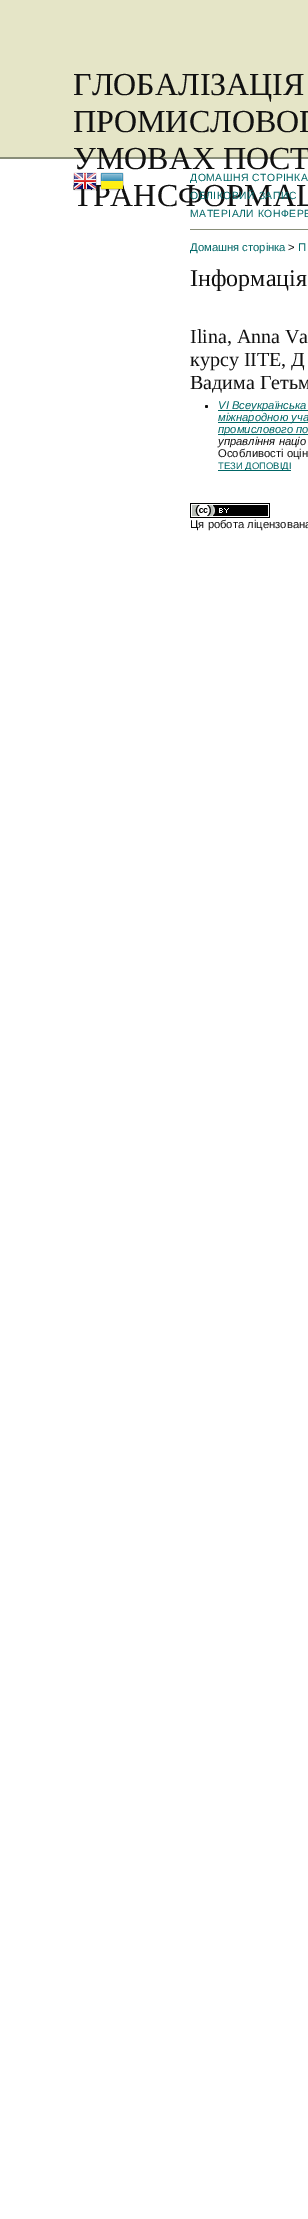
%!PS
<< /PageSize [308 2219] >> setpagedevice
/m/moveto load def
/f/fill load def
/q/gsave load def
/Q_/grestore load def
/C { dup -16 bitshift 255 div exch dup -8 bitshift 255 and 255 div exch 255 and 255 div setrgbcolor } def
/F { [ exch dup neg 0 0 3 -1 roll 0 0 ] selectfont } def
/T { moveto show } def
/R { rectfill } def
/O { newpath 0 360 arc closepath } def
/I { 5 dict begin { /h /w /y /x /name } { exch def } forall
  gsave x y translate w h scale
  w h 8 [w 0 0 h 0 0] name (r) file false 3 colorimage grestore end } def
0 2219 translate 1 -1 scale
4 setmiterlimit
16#FFFFFF C
0 0 308 2219 R
16#E5E5C7 C
0 0 308 157 R
16#898E79 C
0 157 308 2 R
/LiberationSerif-Regular 32 F
16#111111 C
(ГЛОБАЛІЗАЦІЯ) 73 95 T
(ПРОМИСЛОВОГ) 73 132 T
(УМОВАХ ПОСТ) 73 169 T
(ТРАНСФОРМАЦ) 73 206 T
(1.rgb) 73 172 24 19 I
(2.rgb) 100 172 24 19 I
16#898E79 C
190 229 118 1 R
q
190 159 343 403 rectclip
/LiberationSans-Regular 10.4 F
16#006666 C
190 181 m .5 0 (ДОМАШНЯ СТОРІНКА) ashow
Q_
/LiberationSans-Regular 10.4 F
16#006666 C
190 199 m .5 0 (ОБЛІКОВИЙ ЗАПИС) ashow
190 217 m .5 0 (МАТЕРІАЛИ КОНФЕРЕ) ashow
q
190 159 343 403 rectclip
/LiberationSans-Regular 11.25 F
(Домашня сторінка) 190 251 T
Q_
/LiberationSans-Regular 11.25 F
16#111111 C
(>) 288 251 T
16#006666 C
(П) 298 251 T
/LiberationSerif-Regular 24 F
16#111111 C
(Інформація) 190 286 T
/LiberationSerif-Regular 20 F
(Ilina, Anna Va) 190 343 T
(курсу ІІТЕ, Д) 190 366 T
(Вадима Гетьм) 190 389 T
206.5 406.5 1.5 O f
16#006666 C
218 410 90 1 R
/LiberationSans-Italic 11.25 F
(VІ Всеукраїнська) 218 409 T
218 422 90 1 R
(міжнародною уча) 218 421 T
218 434 90 1 R
(промислового по) 218 433 T
16#111111 C
(управління націо) 218 445 T
/LiberationSans-Regular 11.25 F
(Особливості оцін) 218 457 T
16#006666 C
218 470 73 1 R
/LiberationSans-Regular 9.5 F
(ТЕЗИ ДОПОВІДІ) 218 469 T
(3.rgb) 190 503 80 15 I
/LiberationSans-Regular 11.25 F
16#111111 C
(Ця робота ліцензована) 190 528 T
showpage
